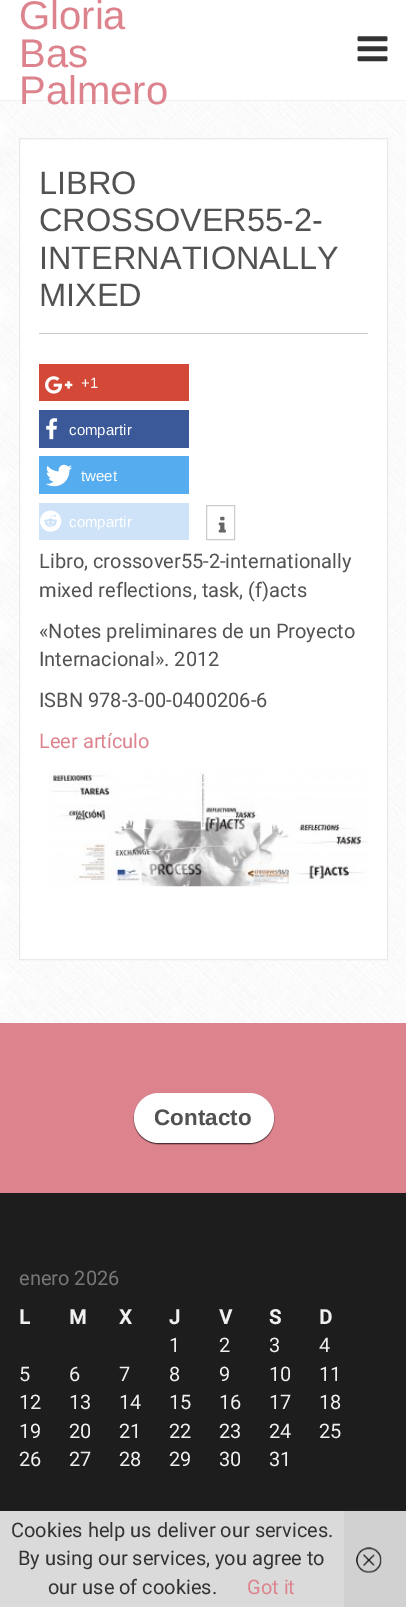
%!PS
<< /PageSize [406 1607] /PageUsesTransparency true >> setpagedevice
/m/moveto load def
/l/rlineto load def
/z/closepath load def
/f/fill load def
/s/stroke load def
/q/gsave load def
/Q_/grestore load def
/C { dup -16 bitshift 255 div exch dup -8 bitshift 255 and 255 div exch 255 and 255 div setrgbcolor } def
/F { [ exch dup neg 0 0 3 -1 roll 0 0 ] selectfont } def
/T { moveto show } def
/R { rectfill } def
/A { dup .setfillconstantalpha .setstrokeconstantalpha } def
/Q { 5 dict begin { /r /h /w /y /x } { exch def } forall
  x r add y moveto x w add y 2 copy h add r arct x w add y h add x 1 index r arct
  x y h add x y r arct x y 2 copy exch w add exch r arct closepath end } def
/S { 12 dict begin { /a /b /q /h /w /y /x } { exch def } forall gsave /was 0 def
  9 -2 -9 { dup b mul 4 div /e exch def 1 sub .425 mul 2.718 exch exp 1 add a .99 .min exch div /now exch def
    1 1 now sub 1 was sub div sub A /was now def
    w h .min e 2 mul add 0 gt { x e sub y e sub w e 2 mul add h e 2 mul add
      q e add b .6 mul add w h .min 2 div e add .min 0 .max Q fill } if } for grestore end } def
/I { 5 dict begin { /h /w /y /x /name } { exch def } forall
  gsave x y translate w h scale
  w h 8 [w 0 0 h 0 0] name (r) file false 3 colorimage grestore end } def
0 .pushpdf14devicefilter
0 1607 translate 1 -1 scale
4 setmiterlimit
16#FFFFFF C
0 0 406 1607 R
(1.rgb) 0 101 406 922 I
16#F0F0F0 C
0 100 406 1 R
/LiberationSans-Regular 40 F
16#DC838D C
(Gloria) 19 29 T
(Bas) 19 67 T
(Palmero) 19 104 T
(2.rgb) 357 36 31 26 I
16#FFFFFF C
19.5 138.5 m 368 0 l 0 821 l -368 0 l z q f Q_
16#EAEAEA C
s
16#CACACA C
39 333 329 1 R
/LiberationSans-Regular 32.5 F
16#525252 C
(LIBRO) 39 194 T
(CROSSOVER55-2-) 39 231 T
(INTERNATIONALLY) 39 269 T
(MIXED) 39 306 T
16#D34836 C
39 364 150 37 R
(3.rgb) 45 376 28 18 I
/LiberationSans-Regular 15 F
16#FFFFFF C
(+1) 81 388 T
16#3B5998 C
39 410 150 38 R
(4.rgb) 46 418 12 22 I
16#FFFFFF C
(compartir) 69 435 T
16#55ACEE C
39 456 150 38 R
(5.rgb) 46 464 26 23 I
16#FFFFFF C
(tweet) 81 481 T
16#CEE3F8 C
39 503 150 37 R
(6.rgb) 40 510 22 22 I
16#FFFFFF C
(compartir) 69 527 T
16#CCCCCC C
206.5 505.5 28 34 rectstroke
(7.rgb) 218 516 8 17 I
/Roboto-Regular 20 F
16#525252 C
(Libro, crossover55-2-internationally) 39 568 T
(mixed reflections, task, \(f\)acts) 39 597 T
(«Notes preliminares de un Proyecto) 39 638 T
(Internacional». 2012) 39 666 T
(ISBN 978-3-00-0400206-6) 39 707 T
16#DC838D C
(Leer artículo) 39 748 T
(8.rgb) 49 770 319 117 I
16#1D1D1D C
0 1193 406 414 R
16#DC838D C
0 1023 406 170 R
16#000000 C
134 1094 140 50 25 .5 .75 S
16#FFFFFF C
134 1093 140 50 25 Q f
/LiberationSans-Bold 22.5 F
16#525252 C
(Contacto) 154 1125 T
/Roboto-Regular 20 F
16#777777 C
(enero 2026) 19 1285 T
/Roboto-Bold 20 F
16#F0F0F0 C
(L) 19 1324 T
(M) 69 1324 T
(X) 119 1324 T
(J) 169 1324 T
(V) 219 1324 T
(S) 269 1324 T
(D) 319 1324 T
/Roboto-Regular 20 F
(1) 169 1352 T
(2) 219 1352 T
(3) 269 1352 T
(4) 319 1352 T
(5) 19 1381 T
(6) 69 1381 T
(7) 119 1381 T
(8) 169 1381 T
(9) 219 1381 T
(10) 269 1381 T
(11) 319 1381 T
(12) 19 1409 T
(13) 69 1409 T
(14) 119 1409 T
(15) 169 1409 T
(16) 219 1409 T
(17) 269 1409 T
(18) 319 1409 T
(19) 19 1438 T
(20) 69 1438 T
(21) 119 1438 T
(22) 169 1438 T
(23) 219 1438 T
(24) 269 1438 T
(25) 319 1438 T
(26) 19 1466 T
(27) 69 1466 T
(28) 119 1466 T
(29) 169 1466 T
(30) 219 1466 T
(31) 269 1466 T
0.9 A
16#EEEEEE C
0 1511 344 96 R
1 A
16#333333 C
(Cookies help us deliver our services.) 11 1537 T
(By using our services, you agree to) 18 1565 T
(our use of cookies.) 48 1594 T
16#DC838D C
(Got it) 247 1594 T
16#D1D1D1 C
344 1511 62 96 R
(9.rgb) 356 1547 26 26 I
.poppdf14devicefilter showpage
